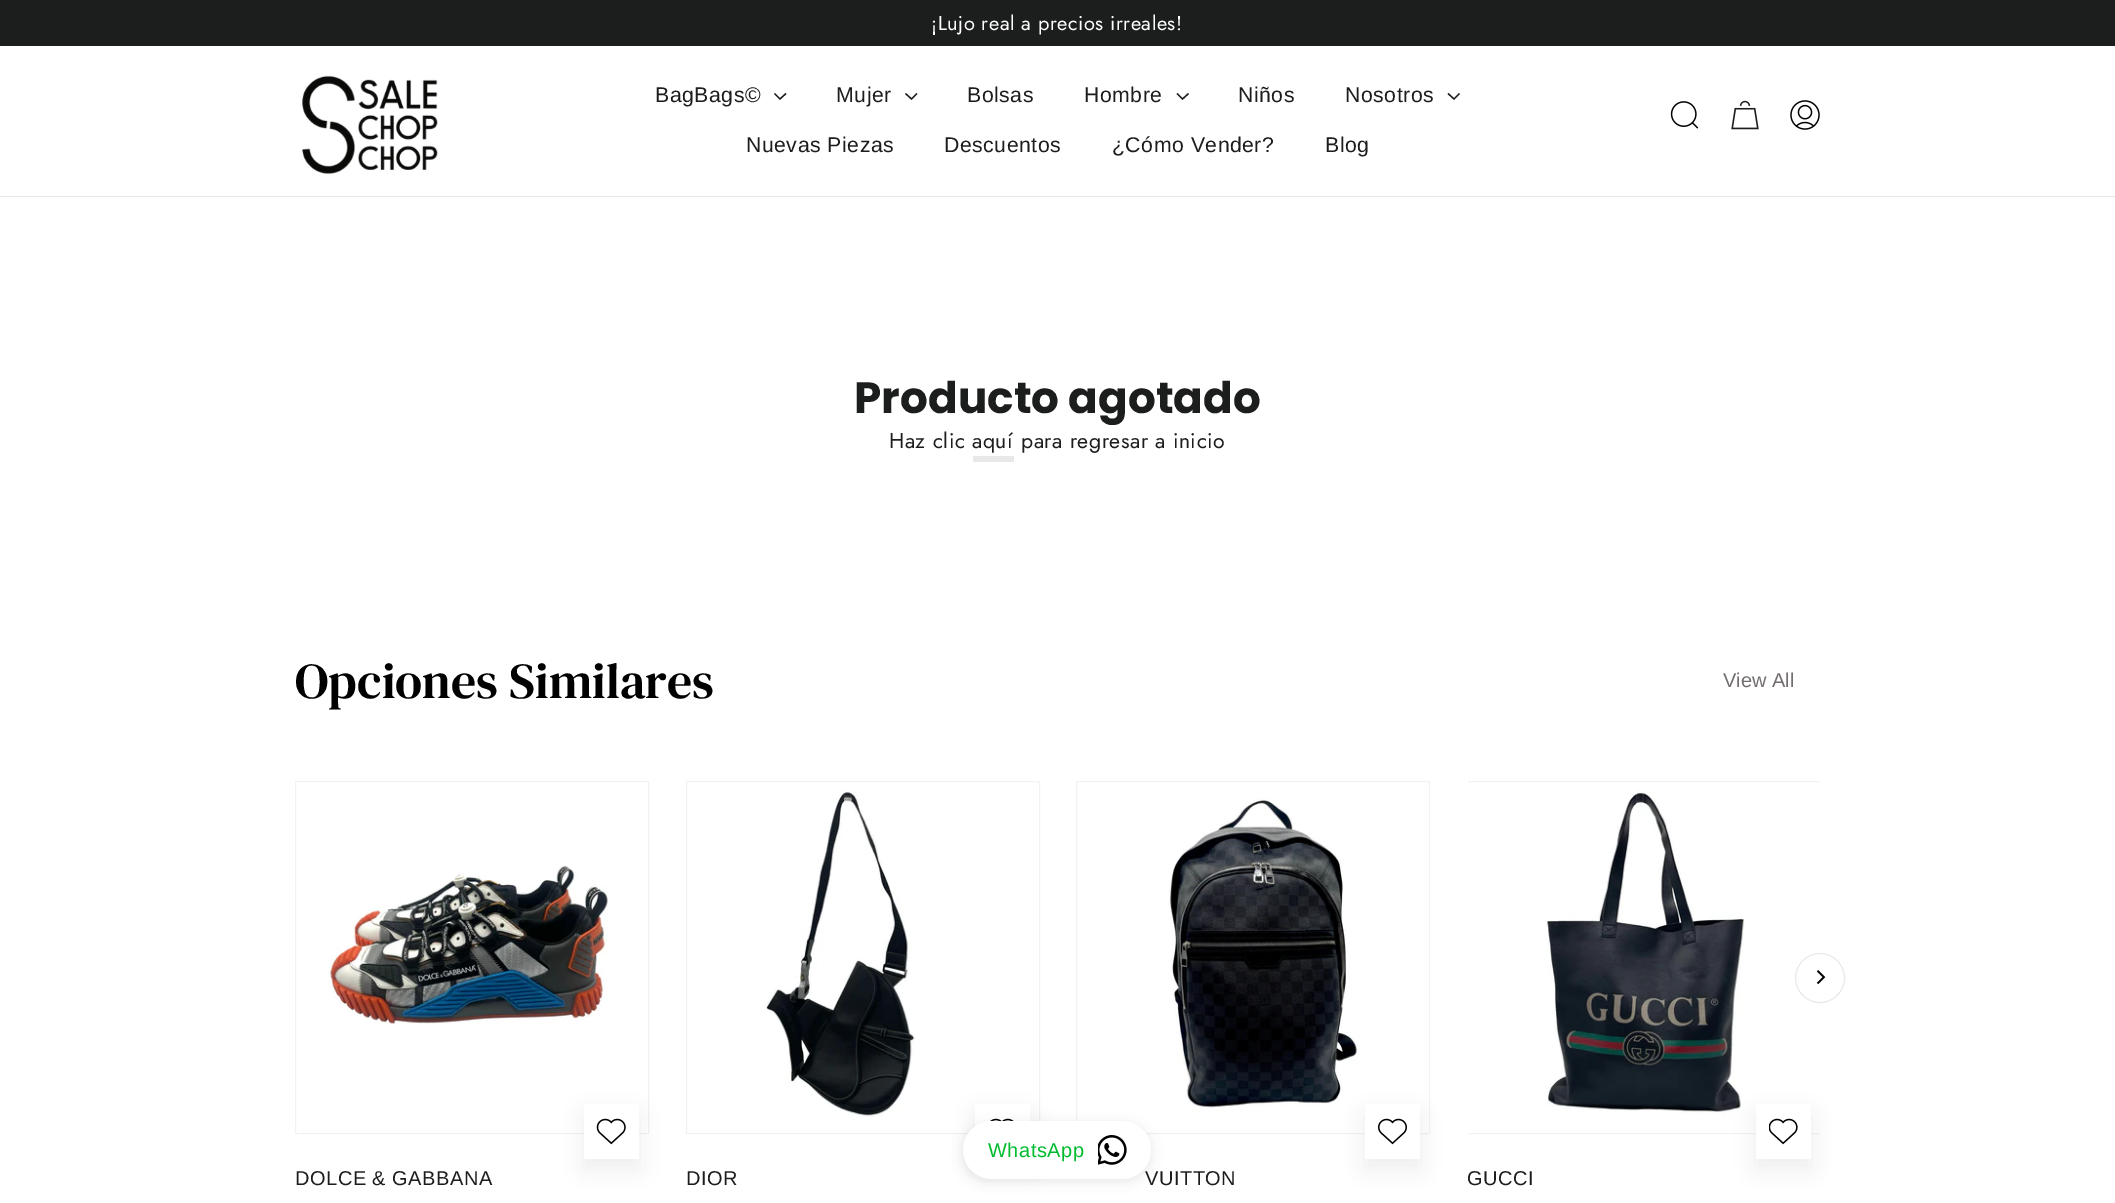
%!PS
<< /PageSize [2115 1203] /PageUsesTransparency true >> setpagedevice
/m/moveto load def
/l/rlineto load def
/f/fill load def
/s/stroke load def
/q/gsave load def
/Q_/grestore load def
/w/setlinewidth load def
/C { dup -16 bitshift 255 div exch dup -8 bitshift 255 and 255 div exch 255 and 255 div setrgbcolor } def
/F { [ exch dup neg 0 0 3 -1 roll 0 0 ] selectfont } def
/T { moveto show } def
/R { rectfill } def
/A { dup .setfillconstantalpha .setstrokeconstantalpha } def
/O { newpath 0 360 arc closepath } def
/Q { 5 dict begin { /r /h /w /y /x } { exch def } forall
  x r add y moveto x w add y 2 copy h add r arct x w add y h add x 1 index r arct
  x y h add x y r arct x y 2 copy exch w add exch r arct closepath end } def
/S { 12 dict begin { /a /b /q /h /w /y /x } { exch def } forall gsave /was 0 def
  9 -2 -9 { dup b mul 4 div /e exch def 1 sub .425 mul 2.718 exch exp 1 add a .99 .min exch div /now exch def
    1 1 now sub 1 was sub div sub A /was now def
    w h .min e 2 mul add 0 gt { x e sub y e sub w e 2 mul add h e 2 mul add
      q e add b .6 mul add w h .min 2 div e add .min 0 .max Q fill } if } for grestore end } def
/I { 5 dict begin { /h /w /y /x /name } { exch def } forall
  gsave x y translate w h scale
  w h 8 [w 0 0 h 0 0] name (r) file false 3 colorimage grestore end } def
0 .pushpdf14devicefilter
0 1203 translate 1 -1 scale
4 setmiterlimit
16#FFFFFF C
0 0 2115 1203 R
16#1C1D1D C
0 0 2115 46 R
/Jost-Regular 20 F
16#FFFFFF C
931 30 m .5 0 (¡Lujo real a precios irreales!) ashow
16#E8E8E1 C
0 196 2115 1 R
(1.rgb) 302 75 136 99 I
/LiberationSans-Regular 21.25 F
16#1C1D1D C
655 102 m .5 0 (BagBags©) ashow
1.3 w
774.5 93.5 m 5.5 5.5 l 6 -5.5 l s
836 102 m .5 0 (Mujer) ashow
905.5 93.5 m 6 5.5 l 5.5 -5.5 l s
967 102 m .5 0 (Bolsas) ashow
1084 102 m .5 0 (Hombre) ashow
1177 93.5 m 5.5 5.5 l 6 -5.5 l s
1238 102 m .5 0 (Niños) ashow
1345 102 m .5 0 (Nosotros) ashow
1448 93.5 m 6 5.5 l 5.5 -5.5 l s
746 152 m .5 0 (Nuevas Piezas) ashow
944 152 m .5 0 (Descuentos) ashow
1112 152 m .5 0 (¿Cómo Vender?) ashow
1325 152 m .5 0 (Blog) ashow
(2.rgb) 1670 101 29 28 I
(3.rgb) 1731 100 28 30 I
(4.rgb) 1790 100 30 30 I
/Poppins-Bold 43.75 F
(Producto agotado) 854 413 T
/Jost-Regular 21.25 F
889 448 m .5 0 (Haz clic aquí) ashow
1021 448 m .5 0 (para regresar a inicio) ashow
16#E8E8E8 C
973 456 41 6 R
/DMSerifText-Regular 50 F
16#000000 C
(Opciones Similares) 295 698 T
/LiberationSans-Regular 20 F
16#736E6D C
(View All) 1723 687 T
q
258 759 1562 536 rectclip
16#F3F2F1 C
1 w
1468.5 781.5 352 352 rectstroke
Q_
16#E9E9E9 C
1 w
1820 978 24.5 O s
(5.rgb) 1816 970 10 14 I
16#F3F2F1 C
295.5 781.5 353 352 rectstroke
(6.rgb) 328 866 281 159 I
16#2F2E2D C
584 1114 55 55 0 10 .08 S
16#FFFFFF C
584 1104 55 55 R
(7.rgb) 596 1118 30 27 I
16#1C1D1D C
295 1185 m .5 0 (DOLCE & GABBANA) ashow
16#F3F2F1 C
686.5 781.5 353 352 rectstroke
(8.rgb) 765 790 150 327 I
16#2F2E2D C
975 1114 55 55 0 10 .08 S
16#FFFFFF C
975 1104 55 23 R
(9.rgb) 989 1118 25 4 I
16#1C1D1D C
686 1185 m .5 0 (DIOR) ashow
16#F3F2F1 C
1076.5 781.5 353 352 rectstroke
(10.rgb) 1168 798 190 310 I
16#2F2E2D C
1365 1114 55 55 0 10 .08 S
16#FFFFFF C
1365 1104 55 55 R
(11.rgb) 1378 1118 29 27 I
16#1C1D1D C
1145 1185 m .5 0 (VUITTON) ashow
(12.rgb) 1468 783 277 350 I
16#2F2E2D C
1756 1114 55 55 0 10 .08 S
16#FFFFFF C
1756 1104 55 55 R
(13.rgb) 1769 1118 29 27 I
16#1C1D1D C
1467 1185 m .5 0 (GUCCI) ashow
16#000000 C
963 1124 188 57 28.5 6 .1 S
16#FFFFFF C
963 1121 188 58 29 Q f
16#00BB2D C
988 1157 m .5 0 (WhatsApp) ashow
(14.rgb) 1098 1135 29 30 I
.poppdf14devicefilter showpage
